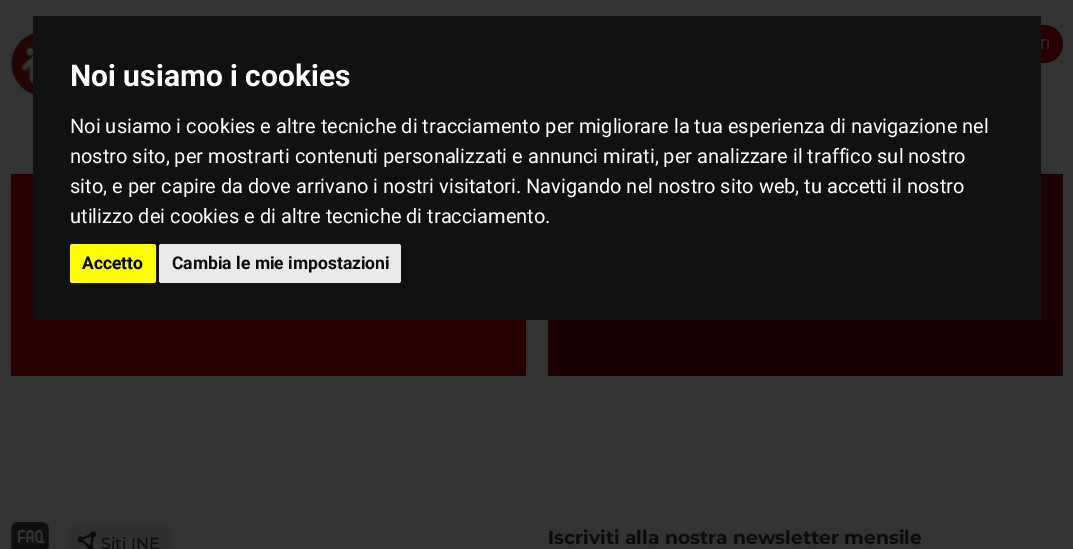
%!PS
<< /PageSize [1073 549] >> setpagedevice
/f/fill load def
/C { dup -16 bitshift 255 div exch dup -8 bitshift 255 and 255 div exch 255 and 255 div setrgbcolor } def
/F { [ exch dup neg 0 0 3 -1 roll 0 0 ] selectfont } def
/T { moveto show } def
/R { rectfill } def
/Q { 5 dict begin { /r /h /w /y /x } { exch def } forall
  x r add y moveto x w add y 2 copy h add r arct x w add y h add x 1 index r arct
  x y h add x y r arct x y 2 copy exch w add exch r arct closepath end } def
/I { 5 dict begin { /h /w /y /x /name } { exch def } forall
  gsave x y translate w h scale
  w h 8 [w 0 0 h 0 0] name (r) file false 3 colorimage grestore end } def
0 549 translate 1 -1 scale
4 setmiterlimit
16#333333 C
0 0 1073 549 R
(1.rgb) 11 33 22 62 I
16#290000 C
938 25 125 38 19 Q f
/Montserrat-Medium 14 F
16#333333 C
(TI) 1038 49 T
16#303030 C
1061 109 1 52 R
16#290000 C
11 174 515 202 R
16#1B0204 C
548 174 515 202 R
16#111111 C
33 16 1008 304 R
/Roboto-Bold 30 F
16#FFFFFF C
(Noi usiamo i cookies) 70 86 T
/Roboto-Regular 20 F
(Noi usiamo i cookies e altre tecniche di tracciamento per migliorare la tua esperienza di navigazione nel) 70 133 T
(nostro sito, per mostrarti contenuti personalizzati e annunci mirati, per analizzare il traffico sul nostro) 70 163 T
(sito, e per capire da dove arrivano i nostri visitatori. Navigando nel nostro sito web, tu accetti il nostro) 70 193 T
(utilizzo dei cookies e di altre tecniche di tracciamento.) 70 223 T
16#FFFF00 C
70 244 86 39 2.5 Q f
/Roboto-Bold 17.5 F
16#000000 C
(Accetto) 82 269 T
16#EAEAEA C
159 244 242 39 2.5 Q f
16#0C0C0C C
(Cambia le mie impostazioni) 172 269 T
(2.rgb) 11 522 38 27 I
16#303030 C
69 523 101 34 8 Q f
(3.rgb) 77 531 20 18 I
/Montserrat-Medium 16 F
16#0C0C0C C
(Siti INE) 101 549 T
/Montserrat-Bold 18.75 F
(Iscriviti alla nostra newsletter mensile) 548 544 T
showpage
